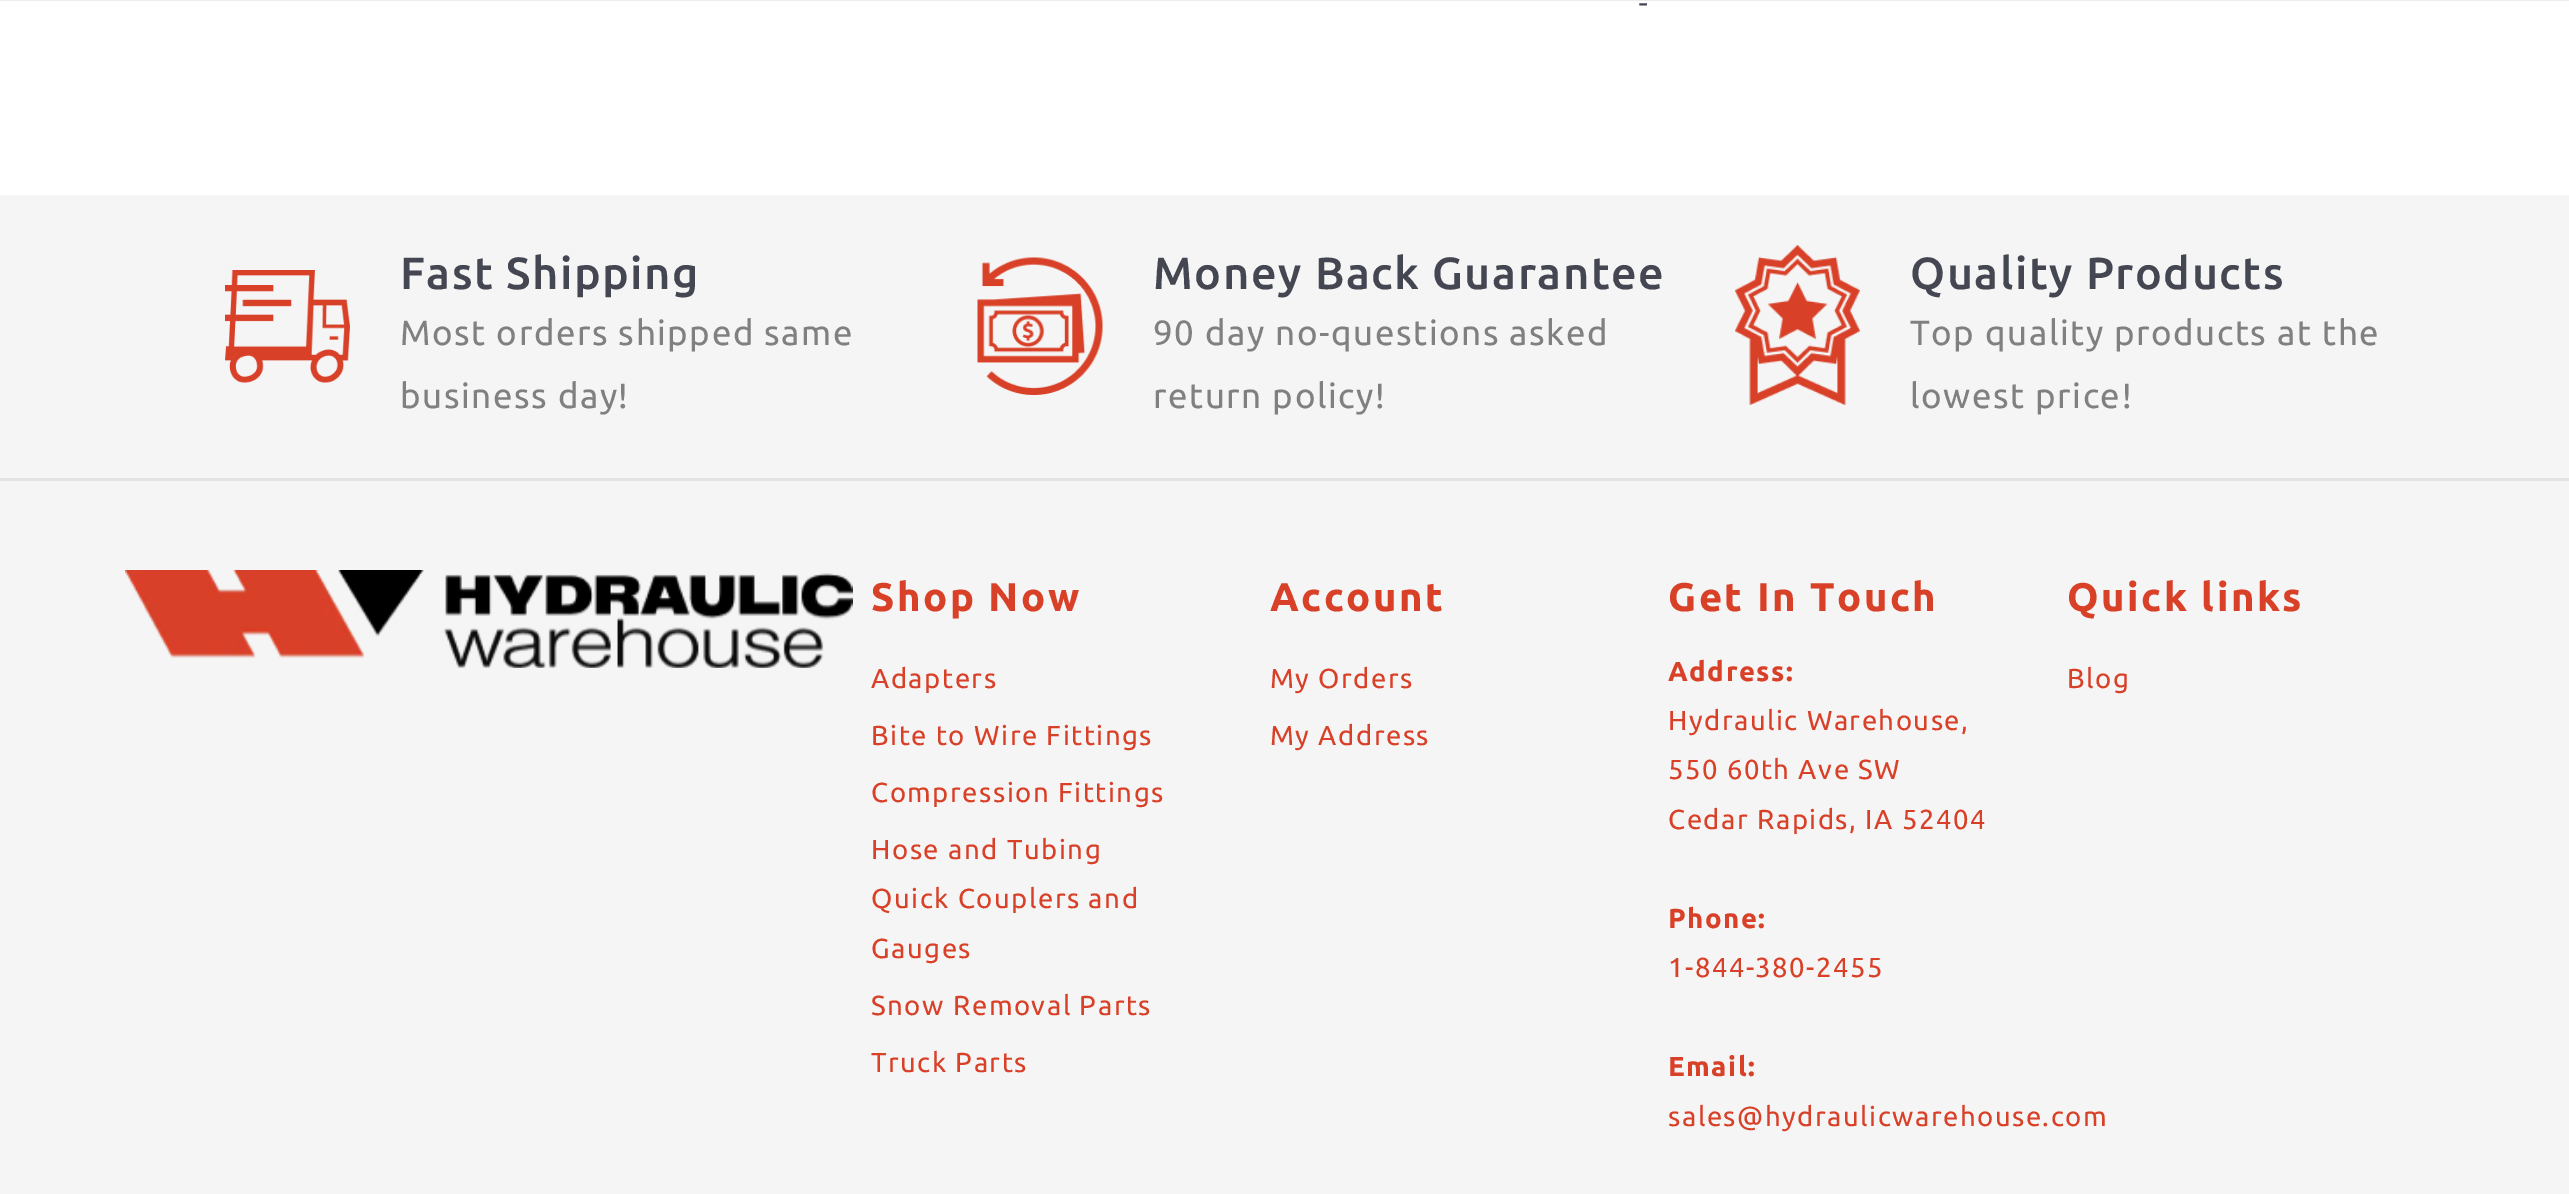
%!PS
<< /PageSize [2569 1194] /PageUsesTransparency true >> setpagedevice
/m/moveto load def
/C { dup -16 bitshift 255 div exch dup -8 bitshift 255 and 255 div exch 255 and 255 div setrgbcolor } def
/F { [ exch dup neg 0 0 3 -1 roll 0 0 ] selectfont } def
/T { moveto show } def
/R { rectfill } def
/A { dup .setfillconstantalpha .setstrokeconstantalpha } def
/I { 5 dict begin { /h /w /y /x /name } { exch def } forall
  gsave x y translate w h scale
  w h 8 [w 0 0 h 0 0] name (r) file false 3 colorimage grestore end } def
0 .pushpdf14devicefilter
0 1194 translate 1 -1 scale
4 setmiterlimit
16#FFFFFF C
0 0 2569 1194 R
0.08 A
16#121212 C
0 0 2569 1 R
/OpenSans-Regular 32 F
1 A
16#444751 C
(-) 1638 13 T
16#F5F5F5 C
0 195 2569 283 R
(1.rgb) 225 270 125 113 I
/Ubuntu-Medium 45 F
16#444751 C
400 289 m 1.5 0 (Fast Shipping) ashow
/Ubuntu-Regular 35 F
16#808080 C
400 345 m 1.5 0 (Most orders shipped same) ashow
400 408 m 1.5 0 (business day!) ashow
(2.rgb) 977 257 126 138 I
/Ubuntu-Medium 45 F
16#444751 C
1153 289 m 1.5 0 (Money Back Guarantee) ashow
/Ubuntu-Regular 35 F
16#808080 C
1153 345 m 1.5 0 (90 day no-questions asked) ashow
1153 408 m 1.5 0 (return policy!) ashow
(3.rgb) 1735 245 125 160 I
/Ubuntu-Medium 45 F
16#444751 C
1910 289 m 1.5 0 (Quality Products) ashow
/Ubuntu-Regular 35 F
16#808080 C
1910 345 m 1.5 0 (Top quality products at the) ashow
1910 408 m 1.5 0 (lowest price!) ashow
16#F5F5F5 C
0 481 2569 713 R
16#E3E3E3 C
0 478 2569 3 R
(4.rgb) 125 570 728 98 I
/Ubuntu-Bold 40 F
16#D84028 C
871 611 m 2.5 0 (Shop Now) ashow
/Ubuntu-Regular 27.5 F
871 688 m 1.5 0 (Adapters) ashow
871 745 m 1.5 0 (Bite to Wire Fittings) ashow
871 802 m 1.5 0 (Compression Fittings) ashow
871 859 m 1.5 0 (Hose and Tubing) ashow
871 908 m 1.5 0 (Quick Couplers and) ashow
871 958 m 1.5 0 (Gauges) ashow
871 1015 m 1.5 0 (Snow Removal Parts) ashow
871 1072 m 1.5 0 (Truck Parts) ashow
/Ubuntu-Bold 40 F
1270 611 m 2.5 0 (Account) ashow
/Ubuntu-Regular 27.5 F
1270 688 m 1.5 0 (My Orders) ashow
1270 745 m 1.5 0 (My Address) ashow
/Ubuntu-Bold 40 F
1668 611 m 2.5 0 (Get In Touch) ashow
/Ubuntu-Bold 27.5 F
1668 681 m 1.5 0 (Address:) ashow
/Ubuntu-Regular 27.5 F
1668 730 m 1.5 0 (Hydraulic Warehouse,) ashow
1668 779 m 1.5 0 (550 60th Ave SW) ashow
1668 829 m 1.5 0 (Cedar Rapids, IA 52404) ashow
/Ubuntu-Bold 27.5 F
1668 928 m 1.5 0 (Phone:) ashow
/Ubuntu-Regular 27.5 F
1668 977 m 1.5 0 (1-844-380-2455) ashow
/Ubuntu-Bold 27.5 F
1668 1076 m 1.5 0 (Email:) ashow
/Ubuntu-Regular 27.5 F
1668 1126 m 1.5 0 (sales@hydraulicwarehouse.com) ashow
/Ubuntu-Bold 40 F
2067 611 m 2.5 0 (Quick links) ashow
/Ubuntu-Regular 27.5 F
2067 688 m 1.5 0 (Blog) ashow
.poppdf14devicefilter showpage
